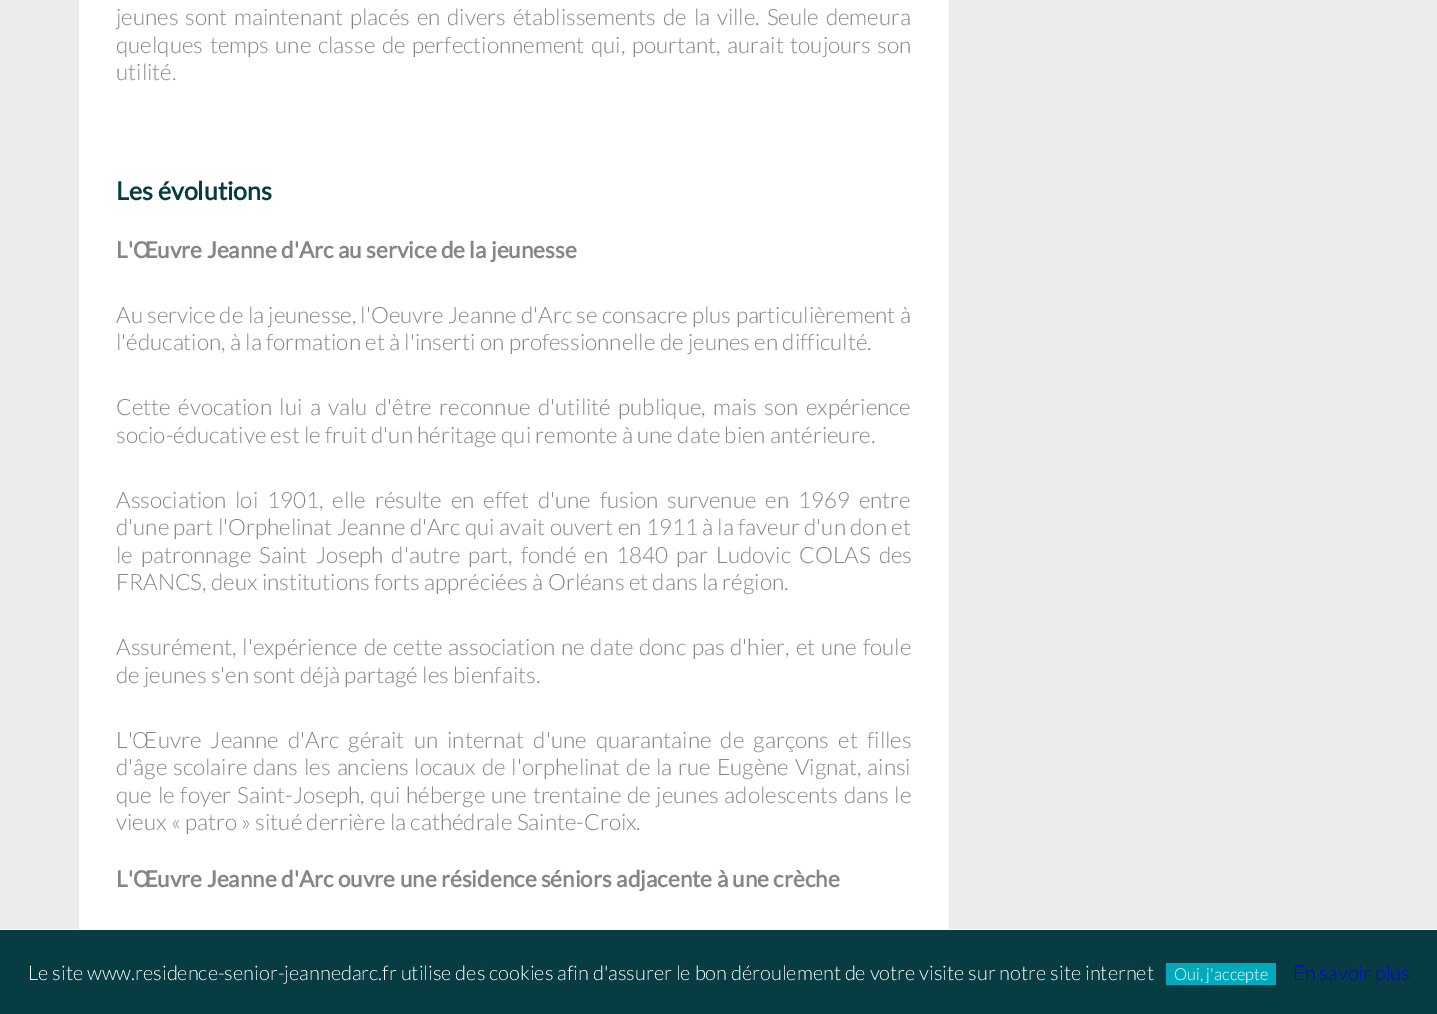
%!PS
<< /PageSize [1437 1014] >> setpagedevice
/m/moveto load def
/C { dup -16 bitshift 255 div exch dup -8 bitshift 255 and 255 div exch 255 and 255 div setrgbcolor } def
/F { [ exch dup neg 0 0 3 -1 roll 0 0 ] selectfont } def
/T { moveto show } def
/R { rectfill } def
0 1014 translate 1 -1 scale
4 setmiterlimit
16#ECECEC C
0 0 1437 1014 R
16#FFFFFF C
79 0 870 929 R
/Lato-Light 22.5 F
16#868686 C
116 25 m 2.5 0 32 (jeunes sont maintenant placés en divers établissements de la ville. Seule demeura) widthshow
116 53 m 2.25 0 32 (quelques temps une classe de perfectionnement qui, pourtant, aurait toujours son) widthshow
(utilité.) 116 80 T
/Lato-Bold 25 F
16#063C42 C
(Les évolutions) 116 200 T
/Lato-Bold 22.5 F
16#868686 C
(L'Œuvre Jeanne d'Arc au service de la jeunesse) 116 258 T
/Lato-Light 22.5 F
(Au service de la jeunesse, l'Oeuvre Jeanne d'Arc se consacre plus particulièrement à) 116 323 T
(l'éducation, à la formation et à l'inserti on professionnelle de jeunes en difficulté.) 116 350 T
116 415 m 3.1 0 32 (Cette évocation lui a valu d'être reconnue d'utilité publique, mais son expérience) widthshow
(socio-éducative est le fruit d'un héritage qui remonte à une date bien antérieure.) 116 443 T
116 508 m 4.5 0 32 (Association loi 1901, elle résulte en effet d'une fusion survenue en 1969 entre) widthshow
(d'une part l'Orphelinat Jeanne d'Arc qui avait ouvert en 1911 à la faveur d'un don et) 116 535 T
116 563 m 3.75 0 32 (le patronnage Saint Joseph d'autre part, fondé en 1840 par Ludovic COLAS des) widthshow
(FRANCS, deux institutions forts appréciées à Orléans et dans la région.) 116 590 T
116 655 m 1.5 0 32 (Assurément, l'expérience de cette association ne date donc pas d'hier, et une foule) widthshow
(de jeunes s'en sont déjà partagé les bienfaits.) 116 683 T
116 748 m 4.9 0 32 (L'Œuvre Jeanne d'Arc gérait un internat d'une quarantaine de garçons et filles) widthshow
116 775 m 1.6 0 32 (d'âge scolaire dans les anciens locaux de l'orphelinat de la rue Eugène Vignat, ainsi) widthshow
116 803 m 1.4 0 32 (que le foyer Saint-Joseph, qui héberge une trentaine de jeunes adolescents dans le) widthshow
(vieux « patro » situé derrière la cathédrale Sainte-Croix.) 116 830 T
/Lato-Bold 22.5 F
(L'Œuvre Jeanne d'Arc ouvre une résidence séniors adjacente à une crèche) 116 887 T
16#063C42 C
0 930 1437 84 R
16#FFFFFF C
0 929 1437 1 R
/Lato-Light 20 F
(Le site www.residence-senior-jeannedarc.fr utilise des cookies afin d'assurer le bon déroulement de votre visite sur notre site internet) 28 980 T
16#00AABD C
1166 963 110 22 R
/Lato-Light 16.5 F
16#FFFFFF C
(Oui, j'accepte) 1174 980 T
/Lato-Light 20 F
16#0000EE C
(En savoir plus) 1293 980 T
showpage
